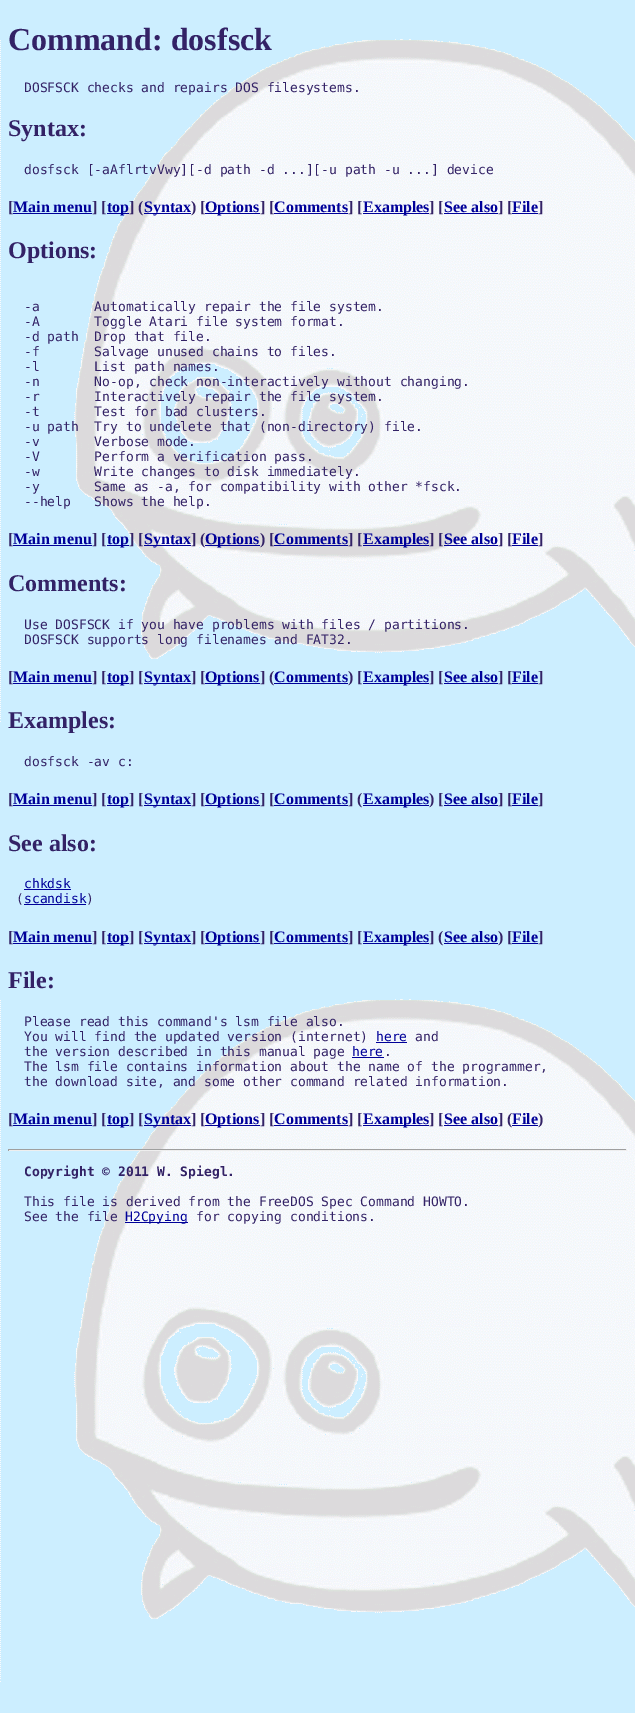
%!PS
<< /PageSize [635 1713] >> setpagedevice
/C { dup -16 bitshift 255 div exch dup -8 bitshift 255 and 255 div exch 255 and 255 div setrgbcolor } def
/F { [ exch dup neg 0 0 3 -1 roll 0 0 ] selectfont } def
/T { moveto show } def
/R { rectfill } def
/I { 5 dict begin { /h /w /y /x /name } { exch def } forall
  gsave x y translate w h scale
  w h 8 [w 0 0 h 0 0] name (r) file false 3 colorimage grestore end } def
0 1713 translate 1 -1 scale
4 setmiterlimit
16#CCEEFF C
0 0 635 1713 R
(1.rgb) 0 39 635 1643 I
/LiberationSerif-Bold 32 F
16#332266 C
(Command: dosfsck) 8 50 T
/DejaVuSansMono-Regular 13 F
(DOSFSCK checks and repairs DOS filesystems.) 24 92 T
/LiberationSerif-Bold 24 F
(Syntax:) 8 136 T
/DejaVuSansMono-Regular 13 F
(dosfsck [-aAflrtvVwy][-d path -d ...][-u path -u ...] device) 24 174 T
/LiberationSerif-Bold 16 F
([) 8 212 T
16#000099 C
(Main menu) 13 212 T
13 213 79 1 R
16#332266 C
(] [) 92 212 T
16#000099 C
107 213 22 1 R
(top) 107 212 T
16#332266 C
(] \() 129 212 T
16#000099 C
144 213 47 1 R
(Syntax) 144 212 T
16#332266 C
(\) [) 191 212 T
16#000099 C
205 213 55 1 R
(Options) 205 212 T
16#332266 C
(] [) 260 212 T
16#000099 C
(Comments) 274 212 T
274 213 74 1 R
16#332266 C
(] [) 348 212 T
16#000099 C
363 213 66 1 R
(Examples) 363 212 T
16#332266 C
(] [) 429 212 T
16#000099 C
(See also) 444 212 T
444 213 54 1 R
16#332266 C
(] [) 498 212 T
16#000099 C
(File) 512 212 T
512 213 26 1 R
16#332266 C
(]) 538 212 T
/LiberationSerif-Bold 24 F
(Options:) 8 258 T
/DejaVuSansMono-Regular 13 F
(-a       Automatically repair the file system.) 24 311 T
(-A       Toggle Atari file system format.) 24 326 T
(-d path  Drop that file.) 24 341 T
(-f       Salvage unused chains to files.) 24 356 T
(-l       List path names.) 24 371 T
(-n       No-op, check non-interactively without changing.) 24 386 T
(-r       Interactively repair the file system.) 24 401 T
(-t       Test for bad clusters.) 24 416 T
(-u path  Try to undelete that \(non-directory\) file.) 24 431 T
(-v       Verbose mode.) 24 446 T
(-V       Perform a verification pass.) 24 461 T
(-w       Write changes to disk immediately.) 24 476 T
(-y       Same as -a, for compatibility with other *fsck.) 24 491 T
(--help   Shows the help.) 24 506 T
/LiberationSerif-Bold 16 F
([) 8 544 T
16#000099 C
(Main menu) 13 544 T
13 545 79 1 R
16#332266 C
(] [) 92 544 T
16#000099 C
107 545 22 1 R
(top) 107 544 T
16#332266 C
(] [) 129 544 T
16#000099 C
144 545 47 1 R
(Syntax) 144 544 T
16#332266 C
(] \() 191 544 T
16#000099 C
205 545 55 1 R
(Options) 205 544 T
16#332266 C
(\) [) 260 544 T
16#000099 C
(Comments) 274 544 T
274 545 74 1 R
16#332266 C
(] [) 348 544 T
16#000099 C
363 545 66 1 R
(Examples) 363 544 T
16#332266 C
(] [) 429 544 T
16#000099 C
(See also) 444 544 T
444 545 54 1 R
16#332266 C
(] [) 498 544 T
16#000099 C
(File) 512 544 T
512 545 26 1 R
16#332266 C
(]) 538 544 T
/LiberationSerif-Bold 24 F
(Comments:) 8 591 T
/DejaVuSansMono-Regular 13 F
(Use DOSFSCK if you have problems with files / partitions.) 24 629 T
(DOSFSCK supports long filenames and FAT32.) 24 644 T
/LiberationSerif-Bold 16 F
([) 8 682 T
16#000099 C
(Main menu) 13 682 T
13 683 79 1 R
16#332266 C
(] [) 92 682 T
16#000099 C
107 683 22 1 R
(top) 107 682 T
16#332266 C
(] [) 129 682 T
16#000099 C
144 683 47 1 R
(Syntax) 144 682 T
16#332266 C
(] [) 191 682 T
16#000099 C
205 683 55 1 R
(Options) 205 682 T
16#332266 C
(] \() 260 682 T
16#000099 C
(Comments) 274 682 T
274 683 74 1 R
16#332266 C
(\) [) 348 682 T
16#000099 C
363 683 66 1 R
(Examples) 363 682 T
16#332266 C
(] [) 429 682 T
16#000099 C
(See also) 444 682 T
444 683 54 1 R
16#332266 C
(] [) 498 682 T
16#000099 C
(File) 512 682 T
512 683 26 1 R
16#332266 C
(]) 538 682 T
/LiberationSerif-Bold 24 F
(Examples:) 8 728 T
/DejaVuSansMono-Regular 13 F
(dosfsck -av c:) 24 766 T
/LiberationSerif-Bold 16 F
([) 8 804 T
16#000099 C
(Main menu) 13 804 T
13 805 79 1 R
16#332266 C
(] [) 92 804 T
16#000099 C
107 805 22 1 R
(top) 107 804 T
16#332266 C
(] [) 129 804 T
16#000099 C
144 805 47 1 R
(Syntax) 144 804 T
16#332266 C
(] [) 191 804 T
16#000099 C
205 805 55 1 R
(Options) 205 804 T
16#332266 C
(] [) 260 804 T
16#000099 C
(Comments) 274 804 T
274 805 74 1 R
16#332266 C
(] \() 348 804 T
16#000099 C
363 805 66 1 R
(Examples) 363 804 T
16#332266 C
(\) [) 429 804 T
16#000099 C
(See also) 444 804 T
444 805 54 1 R
16#332266 C
(] [) 498 804 T
16#000099 C
(File) 512 804 T
512 805 26 1 R
16#332266 C
(]) 538 804 T
/LiberationSerif-Bold 24 F
(See also:) 8 851 T
/DejaVuSansMono-Regular 13 F
16#000099 C
(chkdsk) 24 888 T
24 889 47 1 R
16#332266 C
(\() 16 903 T
16#000099 C
(scandisk) 24 903 T
24 904 62 1 R
16#332266 C
(\)) 86 903 T
/LiberationSerif-Bold 16 F
([) 8 942 T
16#000099 C
(Main menu) 13 942 T
13 943 79 1 R
16#332266 C
(] [) 92 942 T
16#000099 C
107 943 22 1 R
(top) 107 942 T
16#332266 C
(] [) 129 942 T
16#000099 C
144 943 47 1 R
(Syntax) 144 942 T
16#332266 C
(] [) 191 942 T
16#000099 C
205 943 55 1 R
(Options) 205 942 T
16#332266 C
(] [) 260 942 T
16#000099 C
(Comments) 274 942 T
274 943 74 1 R
16#332266 C
(] [) 348 942 T
16#000099 C
363 943 66 1 R
(Examples) 363 942 T
16#332266 C
(] \() 429 942 T
16#000099 C
(See also) 444 942 T
444 943 54 1 R
16#332266 C
(\) [) 498 942 T
16#000099 C
(File) 512 942 T
512 943 26 1 R
16#332266 C
(]) 538 942 T
/LiberationSerif-Bold 24 F
(File:) 8 988 T
/DejaVuSansMono-Regular 13 F
(Please read this command's lsm file also.) 24 1026 T
(You will find the updated version \(internet\)) 24 1041 T
16#000099 C
(here) 376 1041 T
376 1042 31 1 R
16#332266 C
(and) 415 1041 T
(the version described in this manual page) 24 1056 T
16#000099 C
(here) 352 1056 T
352 1057 32 1 R
16#332266 C
(.) 384 1056 T
(The lsm file contains information about the name of the programmer,) 24 1071 T
(the download site, and some other command related information.) 24 1086 T
/LiberationSerif-Bold 16 F
([) 8 1124 T
16#000099 C
(Main menu) 13 1124 T
13 1125 79 1 R
16#332266 C
(] [) 92 1124 T
16#000099 C
107 1125 22 1 R
(top) 107 1124 T
16#332266 C
(] [) 129 1124 T
16#000099 C
144 1125 47 1 R
(Syntax) 144 1124 T
16#332266 C
(] [) 191 1124 T
16#000099 C
205 1125 55 1 R
(Options) 205 1124 T
16#332266 C
(] [) 260 1124 T
16#000099 C
(Comments) 274 1124 T
274 1125 74 1 R
16#332266 C
(] [) 348 1124 T
16#000099 C
363 1125 66 1 R
(Examples) 363 1124 T
16#332266 C
(] [) 429 1124 T
16#000099 C
(See also) 444 1124 T
444 1125 54 1 R
16#332266 C
(] \() 498 1124 T
16#000099 C
(File) 512 1124 T
512 1125 26 1 R
16#332266 C
(\)) 538 1124 T
16#9F9F9F C
8 1149 619 1 R
16#EEEEEE C
626 1149 1 2 R
8 1150 619 1 R
16#9F9F9F C
8 1149 1 2 R
/DejaVuSansMono-Bold 13 F
16#332266 C
(Copyright © 2011 W. Spiegl.) 24 1176 T
/DejaVuSansMono-Regular 13 F
(This file is derived from the FreeDOS Spec Command HOWTO.) 24 1206 T
(See the file) 24 1221 T
16#000099 C
125 1222 63 1 R
(H2Cpying) 125 1221 T
16#332266 C
(for copying conditions.) 196 1221 T
showpage
